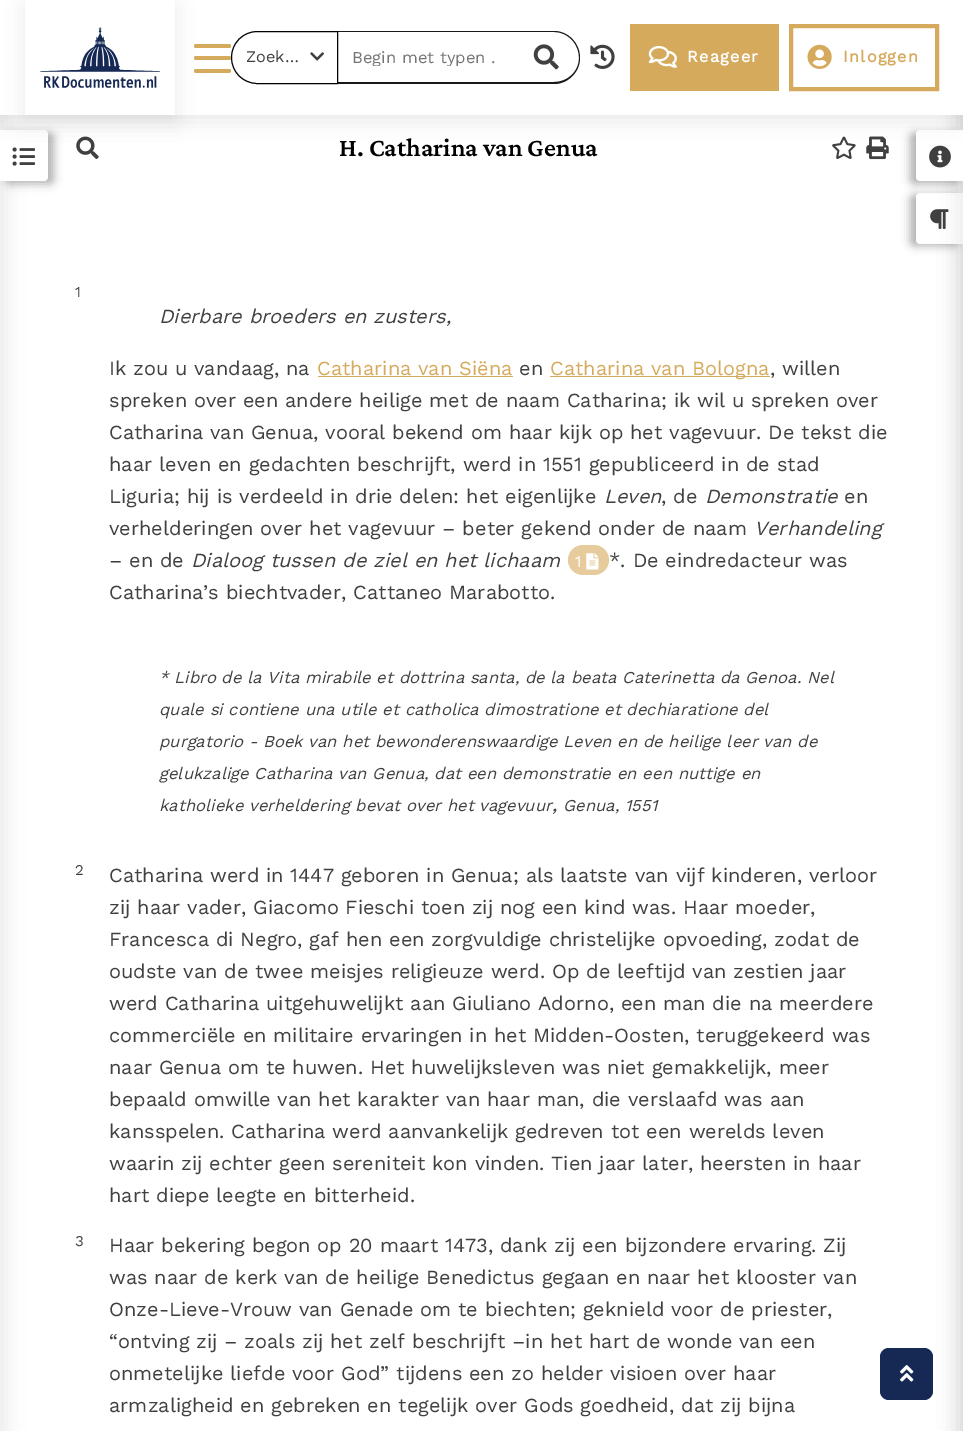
%!PS
<< /PageSize [963 1431] /PageUsesTransparency true >> setpagedevice
/m/moveto load def
/l/rlineto load def
/c/rcurveto load def
/z/closepath load def
/f/fill load def
/s/stroke load def
/q/gsave load def
/Q_/grestore load def
/w/setlinewidth load def
/C { dup -16 bitshift 255 div exch dup -8 bitshift 255 and 255 div exch 255 and 255 div setrgbcolor } def
/F { [ exch dup neg 0 0 3 -1 roll 0 0 ] selectfont } def
/T { moveto show } def
/R { rectfill } def
/A { dup .setfillconstantalpha .setstrokeconstantalpha } def
/Q { 5 dict begin { /r /h /w /y /x } { exch def } forall
  x r add y moveto x w add y 2 copy h add r arct x w add y h add x 1 index r arct
  x y h add x y r arct x y 2 copy exch w add exch r arct closepath end } def
/S { 12 dict begin { /a /b /q /h /w /y /x } { exch def } forall gsave /was 0 def
  9 -2 -9 { dup b mul 4 div /e exch def 1 sub .425 mul 2.718 exch exp 1 add a .99 .min exch div /now exch def
    1 1 now sub 1 was sub div sub A /was now def
    w h .min e 2 mul add 0 gt { x e sub y e sub w e 2 mul add h e 2 mul add
      q e add b .6 mul add w h .min 2 div e add .min 0 .max Q fill } if } for grestore end } def
/I { 5 dict begin { /h /w /y /x /name } { exch def } forall
  gsave x y translate w h scale
  w h 8 [w 0 0 h 0 0] name (r) file false 3 colorimage grestore end } def
0 .pushpdf14devicefilter
0 1431 translate 1 -1 scale
4 setmiterlimit
16#FFFFFF C
0 0 963 1431 R
16#000000 C
-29 19 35 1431 0 9.5 .08 S
6 133 48 51 4 4.5 .3 S
16#FFFFFF C
0 130 m 44 0 l 2 0 4 2 4 4 c 0 43 l 0 2 -2 4 -4 4 c -44 0 l z f
(7.rgb) 12 147 23 19 I
(9.rgb) 76 136 23 23 I
(10.rgb) 832 136 24 23 I
(11.rgb) 866 136 23 24 I
16#000000 C
958 19 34 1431 0 9.5 .08 S
910 195 48 51 4 4.5 .3 S
16#FFFFFF C
920 193 m 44 0 l 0 51 l -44 0 l -2 0 -4 -2 -4 -4 c 0 -43 l 0 -2 2 -4 4 -4 c z f
(8.rgb) 930 209 19 20 I
16#000000 C
958 19 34 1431 0 9.5 .08 S
910 133 49 51 4 4.5 .3 S
16#FFFFFF C
920 130 m 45 0 l 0 51 l -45 0 l -2 0 -4 -2 -4 -4 c 0 -43 l 0 -2 2 -4 4 -4 c z f
(12.rgb) 929 145 22 23 I
16#000000 C
0 6 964 115 0 9.5 .08 S
16#FFFFFF C
0 0 963 115 R
q
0 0 m 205 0 l 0 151 l -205 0 l z 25 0 m 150 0 l 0 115 l -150 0 l z eoclip newpath
16#000000 C
25 6 150 115 0 9.5 .08 S
Q_
(1.rgb) 40 27 120 61 I
16#D5AA5C C
194 44 37 4 2 Q f
194 56 37 4 2 Q f
194 69 37 4 2 Q f
16#000000 C
257.5 31.5 m 80 0 l 0 52 l -80 0 l -14.5 0 -26 -11.5 -26 -26 c 0 -14.5 11.5 -26 26 -26 c z s
/WorkSans-Regular 16.25 F
16#404040 C
(Zoek…) 246 62 T
(2.rgb) 310 52 14 9 I
16#191919 C
338 31 m 216 0 l 14 0 26 12 26 27 c 0 14 -12 26 -26 26 c -216 0 l z 338 32 m 216 0 l 14 0 25 12 25 26 c 0 13 -11 24 -25 24 c -216 0 l z eofill
q
351 48 144 18 rectclip
/WorkSans-Regular 16.65 F
16#757575 C
(Begin met typen .) 352 63 T
Q_
(3.rgb) 533 44 26 26 I
(4.rgb) 590 44 25 25 I
16#D5AA5C C
630 24 149 67 R
(5.rgb) 648 45 29 23 I
/WorkSans-Bold 16.25 F
16#FFFFFF C
687 62 m 1.25 0 (Reageer) ashow
16#D5AA5C C
4 w
791 26 146 63 rectstroke
(6.rgb) 807 44 25 25 I
843 62 m 1.25 0 (Inloggen) ashow
/CrimsonPro-SemiBold 26.25 F
16#000000 C
(H. Catharina van Genua) 339 156 T
/WorkSans-Regular 15 F
16#404040 C
(1) 75 297 T
/WorkSans-Italic 20 F
(Dierbare broeders en zusters,) 159 323 T
/WorkSans-Regular 20 F
(Ik zou u vandaag, na) 109 375 T
16#D5AA5C C
(Catharina van Siëna) 317 375 T
318 376 195 1 R
16#404040 C
(en) 519 375 T
16#D5AA5C C
550 376 220 1 R
(Catharina van Bologna) 550 375 T
16#404040 C
(, willen) 770 375 T
(spreken over een andere heilige met de naam Catharina; ik wil u spreken over) 109 407 T
(Catharina van Genua, vooral bekend om haar kijk op het vagevuur. De tekst die) 109 439 T
(haar leven en gedachten beschrijft, werd in 1551 gepubliceerd in de stad) 109 471 T
(Liguria; hij is verdeeld in drie delen: het eigenlijke) 109 503 T
/WorkSans-Italic 20 F
(Leven) 604 503 T
/WorkSans-Regular 20 F
(, de) 661 503 T
/WorkSans-Italic 20 F
(Demonstratie) 705 503 T
/WorkSans-Regular 20 F
(en) 844 503 T
(verhelderingen over het vagevuur – beter gekend onder de naam) 109 535 T
/WorkSans-Italic 20 F
(Verhandeling) 754 535 T
/WorkSans-Regular 20 F
(– en de) 109 567 T
/WorkSans-Italic 20 F
(Dialoog tussen de ziel en het lichaam) 191 567 T
16#E6CC9D C
568 545 41 30 15 Q f
/WorkSans-Regular 16.25 F
16#FFFFFF C
(1) 575 567 T
(13.rgb) 586 553 13 17 I
/WorkSans-Regular 20 F
16#404040 C
(*. De eindredacteur was) 609 567 T
(Catharina’s biechtvader, Cattaneo Marabotto.) 109 599 T
/WorkSans-Italic 16.65 F
(* Libro de la Vita mirabile et dottrina santa, de la beata Caterinetta da Genoa. Nel) 159 683 T
(quale si contiene una utile et catholica dimostratione et dechiaratione del) 159 715 T
(purgatorio - Boek van het bewonderenswaardige Leven en de heilige leer van de) 159 747 T
(gelukzalige Catharina van Genua, dat een demonstratie en een nuttige en) 159 779 T
(katholieke verheldering bevat over het vagevuur) 159 811 T
(Genua, 1551) 563 811 T
/WorkSans-Italic 20 F
(,) 552 811 T
/WorkSans-Regular 15 F
(2) 75 875 T
/WorkSans-Regular 20 F
(Catharina werd in 1447 geboren in Genua; als laatste van vijf kinderen, verloor) 109 882 T
(zij haar vader, Giacomo Fieschi toen zij nog een kind was. Haar moeder,) 109 914 T
(Francesca di Negro, gaf hen een zorgvuldige christelijke opvoeding, zodat de) 109 946 T
(oudste van de twee meisjes religieuze werd. Op de leeftijd van zestien jaar) 109 978 T
(werd Catharina uitgehuwelijkt aan Giuliano Adorno, een man die na meerdere) 109 1010 T
(commerciële en militaire ervaringen in het Midden-Oosten, teruggekeerd was) 109 1042 T
(naar Genua om te huwen. Het huwelijksleven was niet gemakkelijk, meer) 109 1074 T
(bepaald omwille van het karakter van haar man, die verslaafd was aan) 109 1106 T
(kansspelen. Catharina werd aanvankelijk gedreven tot een werelds leven) 109 1138 T
(waarin zij echter geen sereniteit kon vinden. Tien jaar later, heersten in haar) 109 1170 T
(hart diepe leegte en bitterheid.) 109 1202 T
/WorkSans-Regular 15 F
(3) 75 1246 T
/WorkSans-Regular 20 F
(Haar bekering begon op 20 maart 1473, dank zij een bijzondere ervaring. Zij) 109 1252 T
(was naar de kerk van de heilige Benedictus gegaan en naar het klooster van) 109 1284 T
(Onze-Lieve-Vrouw van Genade om te biechten; geknield voor de priester,) 109 1316 T
(“ontving zij – zoals zij het zelf beschrijft –in het hart de wonde van een) 109 1348 T
(onmetelijke liefde voor God” tijdens een zo helder visioen over haar) 109 1380 T
(armzaligheid en gebreken en tegelijk over Gods goedheid, dat zij bijna) 109 1412 T
16#162954 C
880 1348 53 52 9 Q f
(14.rgb) 900 1365 14 17 I
.poppdf14devicefilter showpage
